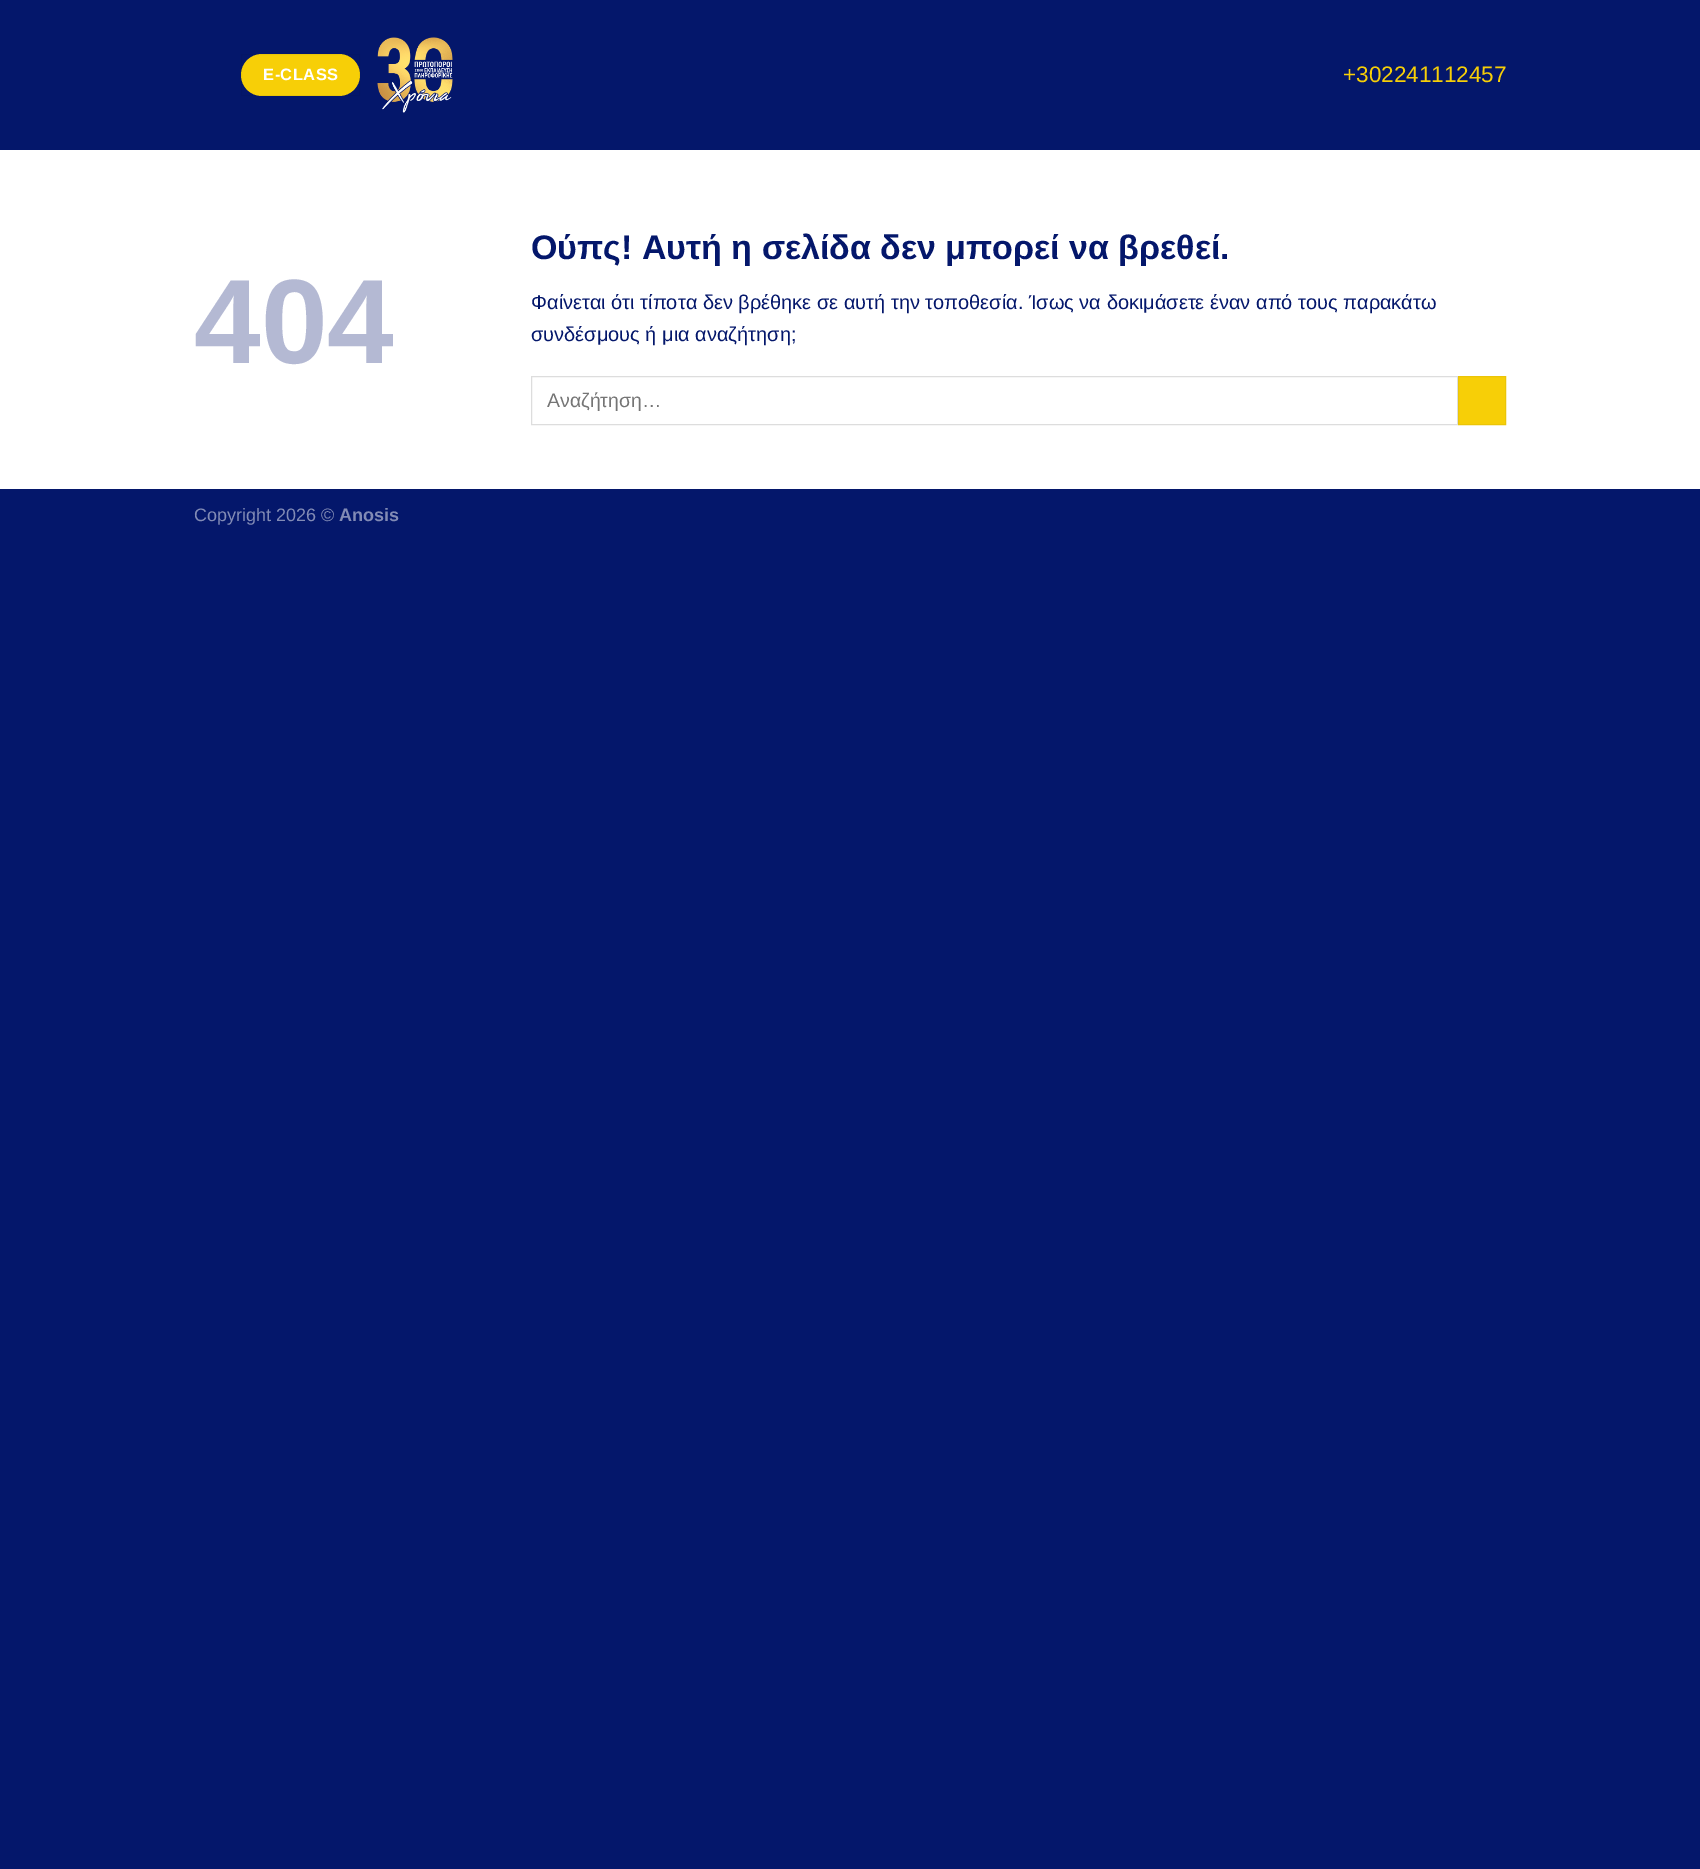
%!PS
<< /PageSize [1700 1869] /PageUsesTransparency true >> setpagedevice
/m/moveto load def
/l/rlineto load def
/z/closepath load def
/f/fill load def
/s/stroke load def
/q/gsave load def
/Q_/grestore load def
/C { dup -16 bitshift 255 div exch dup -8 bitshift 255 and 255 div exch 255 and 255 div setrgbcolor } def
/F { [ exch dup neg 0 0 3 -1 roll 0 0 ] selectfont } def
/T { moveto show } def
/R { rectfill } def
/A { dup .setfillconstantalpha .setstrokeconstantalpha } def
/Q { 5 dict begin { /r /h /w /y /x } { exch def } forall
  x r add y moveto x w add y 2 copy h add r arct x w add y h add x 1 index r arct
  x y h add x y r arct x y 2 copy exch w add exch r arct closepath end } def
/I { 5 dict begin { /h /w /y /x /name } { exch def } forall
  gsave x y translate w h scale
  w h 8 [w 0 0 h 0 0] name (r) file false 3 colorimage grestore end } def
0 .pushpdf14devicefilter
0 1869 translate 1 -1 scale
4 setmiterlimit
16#04176B C
0 0 1700 1869 R
16#FFFFFF C
0 150 1700 339 R
16#F7CF07 C
241 54 119 42 21 Q f
0.05 A
16#000000 C
241.5 54.5 118 41 rectstroke
/LiberationSans-Bold 16.5 F
1 A
16#FFFFFF C
263 80 m .5 0 (E-CLASS) ashow
(1.rgb) 377 37 76 76 I
/LiberationSans-Regular 22.5 F
16#F7CF07 C
(+302241112457) 1343 82 T
/LiberationSans-Bold 120 F
16#B4B9D3 C
(404) 194 363 T
/LiberationSans-Bold 34 F
16#04176B C
(Ούπς! Αυτή η σελίδα δεν μπορεί να βρεθεί.) 531 259 T
/LiberationSans-Regular 20 F
(Φαίνεται ότι τίποτα δεν βρέθηκε σε αυτή την τοποθεσία. Ίσως να δοκιμάσετε έναν από τους παρακάτω) 531 309 T
(συνδέσμους ή μια αναζήτηση;) 531 341 T
16#DDDDDD C
531.5 376.5 926 48 rectstroke
/LiberationSans-Regular 19.5 F
16#757575 C
(Αναζήτηση…) 547 407 T
16#F7CF07 C
1458.5 376.5 m 47 0 l 0 48 l -47 0 l z q f Q_
16#EBC507 C
s
/LiberationSans-Regular 18 F
16#828BB5 C
(Copyright 2026 ©) 194 521 T
/LiberationSans-Bold 18 F
(Anosis) 339 521 T
.poppdf14devicefilter showpage
